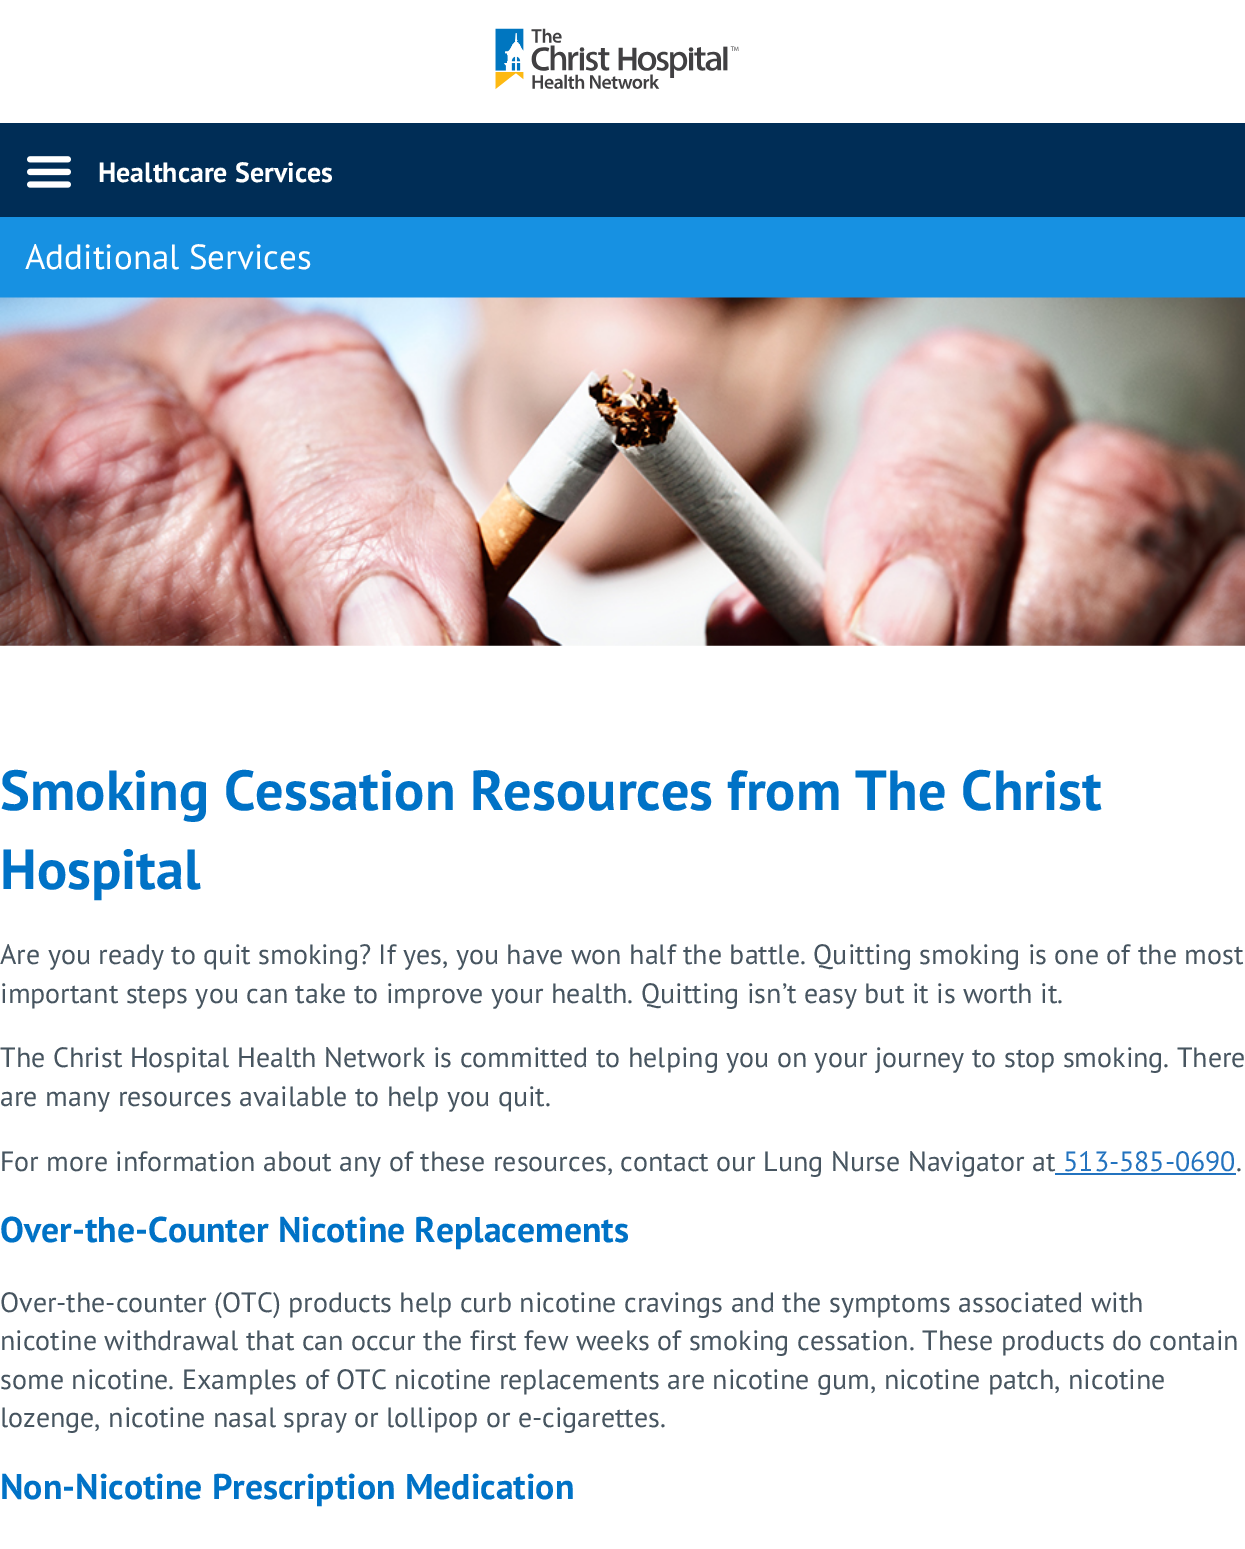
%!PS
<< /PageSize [1245 1549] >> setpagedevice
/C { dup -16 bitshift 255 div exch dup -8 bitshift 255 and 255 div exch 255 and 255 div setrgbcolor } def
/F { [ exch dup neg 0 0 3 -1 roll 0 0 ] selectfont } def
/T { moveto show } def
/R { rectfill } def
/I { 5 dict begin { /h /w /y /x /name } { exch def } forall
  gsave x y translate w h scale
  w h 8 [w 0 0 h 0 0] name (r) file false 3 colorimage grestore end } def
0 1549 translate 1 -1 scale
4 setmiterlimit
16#FFFFFF C
0 0 1245 1549 R
(1.rgb) 495 28 244 62 I
16#002D56 C
0 123 1245 94 R
(2.rgb) 27 156 44 32 I
/PTSans-Bold 28 F
16#FFFFFF C
(Healthcare Services) 98 182 T
16#1791E2 C
0 217 1245 81 R
/PTSans-Regular 35 F
16#FFFFFF C
(Additional Services) 25 269 T
(3.rgb) 0 297 1245 349 I
/PTSans-Bold 56.4 F
16#0072C6 C
(Smoking Cessation Resources from The Christ) 0 810 T
(Hospital) 0 889 T
/PTSans-Regular 28 F
16#475560 C
(Are you ready to quit smoking? If yes, you have won half the battle. Quitting smoking is one of the most) 0 964 T
(important steps you can take to improve your health. Quitting isn’t easy but it is worth it.) 0 1003 T
(The Christ Hospital Health Network is committed to helping you on your journey to stop smoking. There) 0 1067 T
(are many resources available to help you quit.) 0 1106 T
(For more information about any of these resources, contact our Lung Nurse Navigator at) 0 1171 T
16#2373BF C
(513-585-0690) 1063 1171 T
16#475560 C
(.) 1236 1171 T
16#2373BF C
1055 1173 181 2 R
/PTSans-Bold 35.75 F
16#0072C6 C
(Over-the-Counter Nicotine Replacements) 0 1242 T
/PTSans-Regular 28 F
16#475560 C
(Over-the-counter \(OTC\) products help curb nicotine cravings and the symptoms associated with) 0 1312 T
(nicotine withdrawal that can occur the first few weeks of smoking cessation. These products do contain) 0 1350 T
(some nicotine. Examples of OTC nicotine replacements are nicotine gum, nicotine patch, nicotine) 0 1389 T
(lozenge, nicotine nasal spray or lollipop or e-cigarettes.) 0 1427 T
/PTSans-Bold 35.75 F
16#0072C6 C
(Non-Nicotine Prescription Medication) 0 1499 T
showpage
